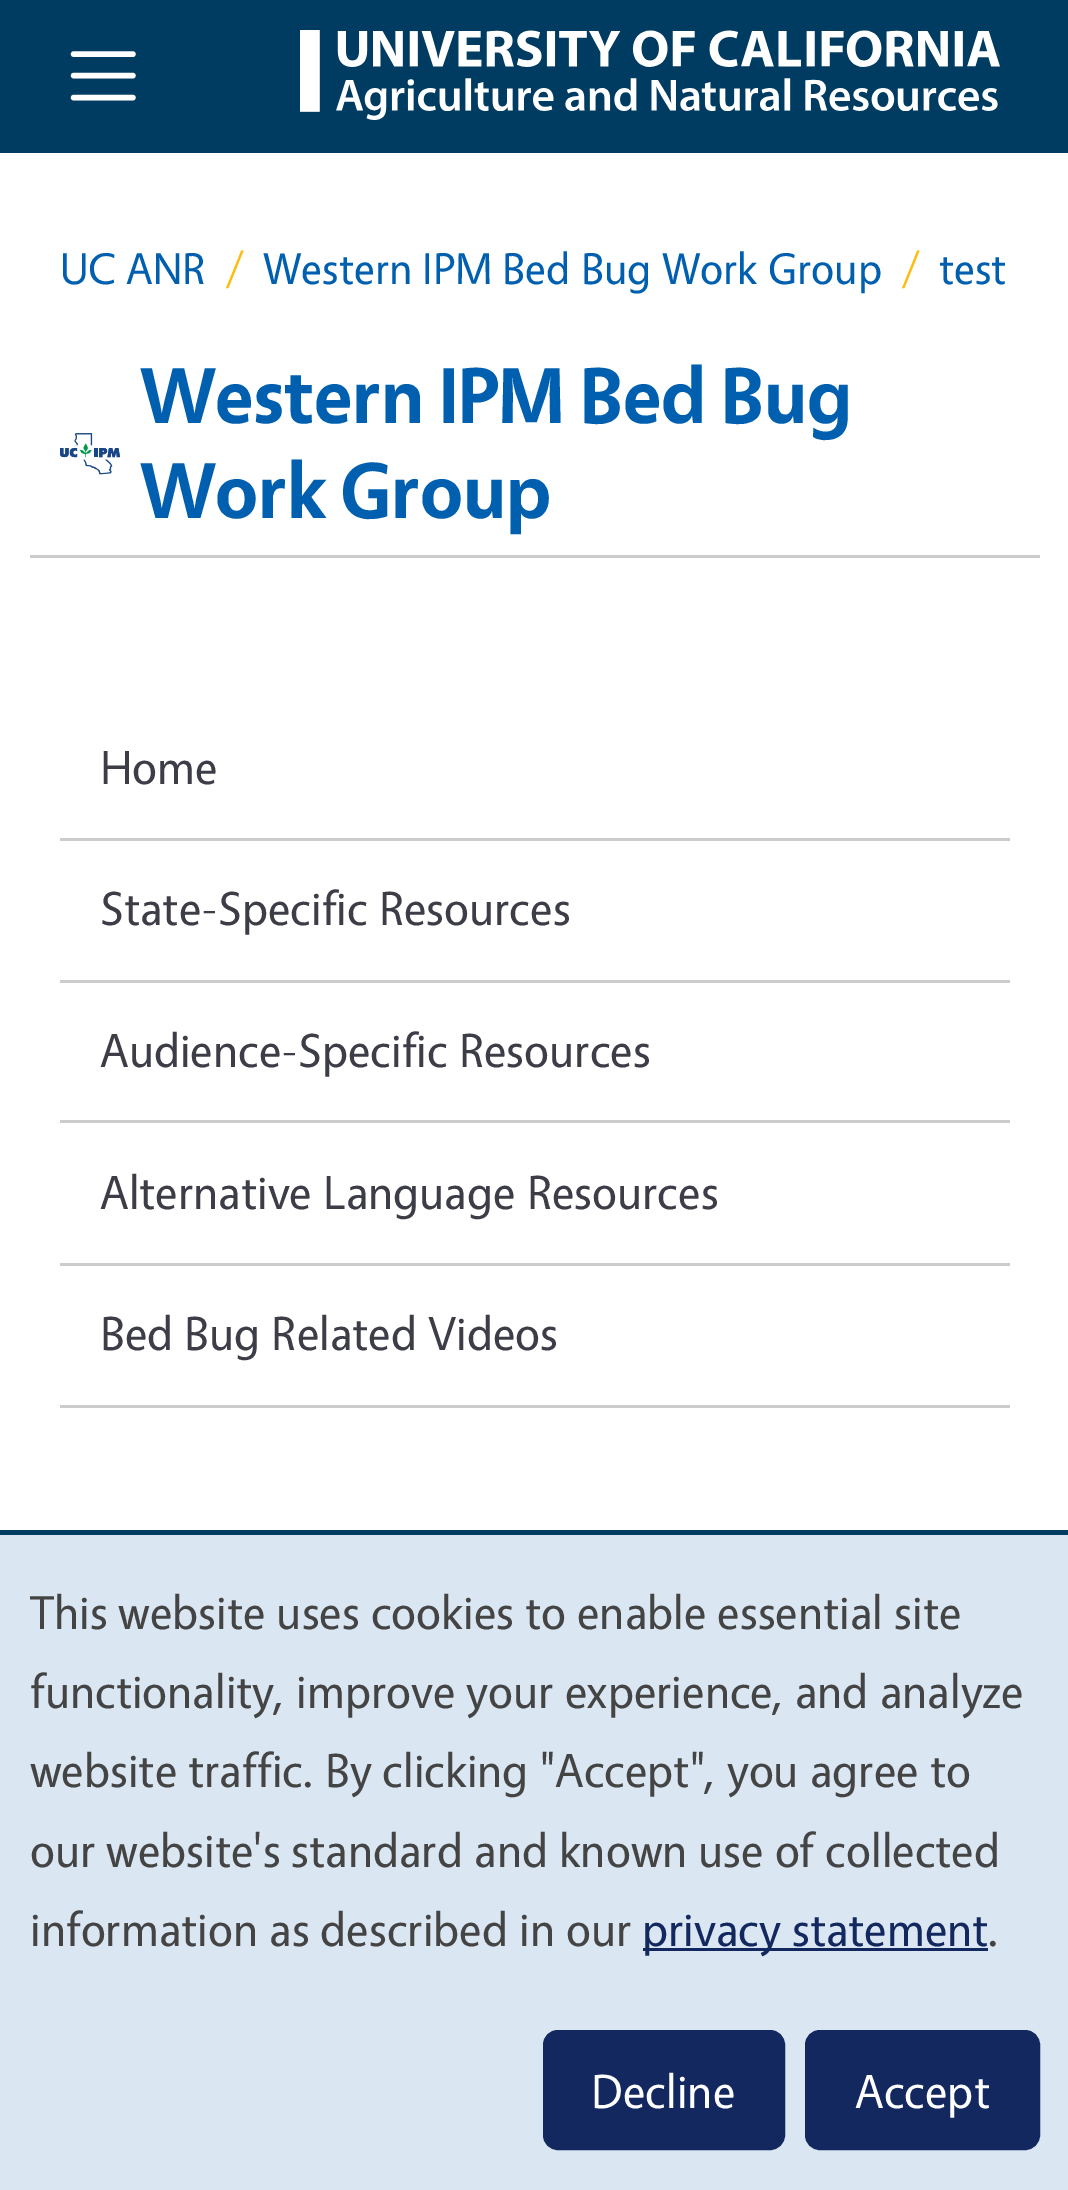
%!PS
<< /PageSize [1068 2190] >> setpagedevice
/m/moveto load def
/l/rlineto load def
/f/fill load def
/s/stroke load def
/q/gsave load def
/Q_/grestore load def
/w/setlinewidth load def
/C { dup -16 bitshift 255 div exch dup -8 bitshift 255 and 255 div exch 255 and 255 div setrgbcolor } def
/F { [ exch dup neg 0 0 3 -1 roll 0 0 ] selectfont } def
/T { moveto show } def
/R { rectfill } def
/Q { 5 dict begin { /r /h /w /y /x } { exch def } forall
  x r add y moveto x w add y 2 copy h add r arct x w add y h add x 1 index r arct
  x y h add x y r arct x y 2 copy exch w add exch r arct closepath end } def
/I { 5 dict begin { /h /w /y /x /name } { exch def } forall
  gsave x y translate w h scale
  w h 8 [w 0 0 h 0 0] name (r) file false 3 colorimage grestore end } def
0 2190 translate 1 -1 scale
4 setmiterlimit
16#FFFFFF C
0 0 1068 2190 R
16#003C61 C
0 0 1068 153 R
16#FFFFFF C
5.4 w
1 setlinecap
73.5 54 m 59.5 0 l 73.5 75.5 m 59.5 0 l 73.5 97.5 m 59.5 0 l s
(1.rgb) 300 30 700 90 I
/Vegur-Regular 44.6 F
16#005FAE C
(UC ANR) 60 284 T
16#FDBD10 C
(/) 226 284 T
16#005FAE C
(Western IPM Bed Bug Work Group) 263 284 T
16#FDBD10 C
(/) 902 284 T
16#005FAE C
(test) 939 284 T
16#CCCCCC C
30 555 1010 3 R
(2.rgb) 60 433 60 42 I
/Vegur-Bold 79.5 F
16#005FAE C
(Western IPM Bed Bug) 141 423 T
(Work Group) 141 518 T
16#CCCCCC C
60 838 950 3 R
/Vegur-Regular 48 F
16#3D3D47 C
(Home) 100 784 T
16#CCCCCC C
60 980 950 3 R
16#3D3D47 C
(State-Specific Resources) 100 925 T
16#CCCCCC C
60 1120 950 3 R
16#3D3D47 C
(Audience-Specific Resources) 100 1067 T
16#CCCCCC C
60 1263 950 3 R
16#3D3D47 C
(Alternative Language Resources) 100 1209 T
16#CCCCCC C
60 1405 950 3 R
16#3D3D47 C
(Bed Bug Related Videos) 100 1350 T
16#DAE7F3 C
0 1535 1068 655 R
16#003C61 C
0 1530 1068 5 R
16#444444 C
(This website uses cookies to enable essential site) 30 1629 T
(functionality, improve your experience, and analyze) 30 1708 T
(website traffic. By clicking "Accept", you agree to) 30 1787 T
(our website's standard and known use of collected) 30 1867 T
(information as described in our) 30 1946 T
16#12285F C
643 1948 345 3 R
(privacy statement) 642 1946 T
16#444444 C
(.) 988 1946 T
16#12285F C
547 2034 234 112 11 Q q f Q_
8 w
0 setlinecap
s
16#FFFFFF C
(Decline) 591 2108 T
16#12285F C
809 2034 227 112 11 Q q f Q_
s
16#FFFFFF C
(Accept) 855 2108 T
showpage
